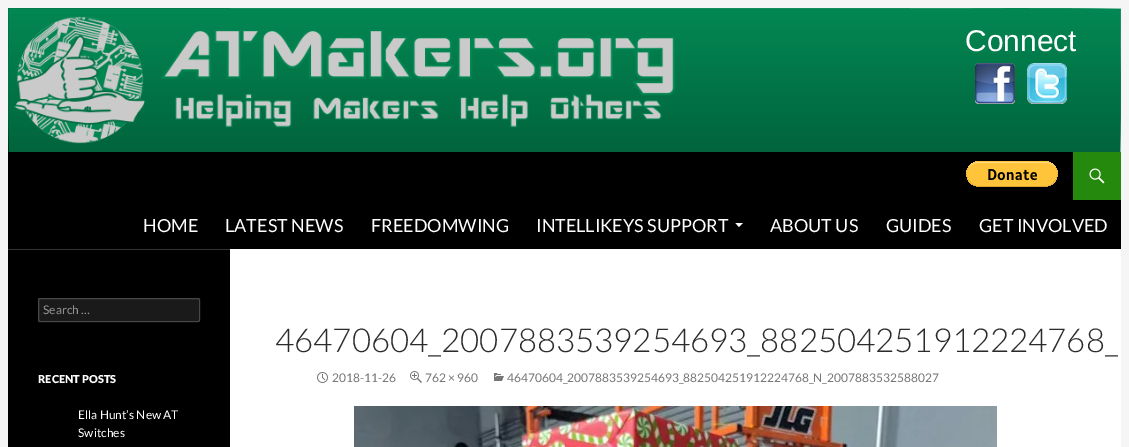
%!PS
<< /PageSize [1129 447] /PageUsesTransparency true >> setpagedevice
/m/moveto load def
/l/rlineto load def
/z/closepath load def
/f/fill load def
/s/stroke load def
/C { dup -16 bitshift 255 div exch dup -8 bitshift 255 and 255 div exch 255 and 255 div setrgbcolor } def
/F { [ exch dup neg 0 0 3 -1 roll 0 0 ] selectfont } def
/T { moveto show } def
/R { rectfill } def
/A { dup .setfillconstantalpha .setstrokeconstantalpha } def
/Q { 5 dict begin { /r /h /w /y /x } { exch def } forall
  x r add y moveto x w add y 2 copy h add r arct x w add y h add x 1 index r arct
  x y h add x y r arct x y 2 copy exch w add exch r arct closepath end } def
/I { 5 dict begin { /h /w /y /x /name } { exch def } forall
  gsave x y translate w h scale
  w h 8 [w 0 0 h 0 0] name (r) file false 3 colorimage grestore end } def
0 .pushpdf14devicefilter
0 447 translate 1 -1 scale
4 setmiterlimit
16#F5F5F5 C
0 0 1129 447 R
16#FFFFFF C
230 8 891 439 R
16#000000 C
8 8 222 439 R
(1.rgb) 8 8 1113 144 I
/LiberationSans-Regular 30 F
16#FFFFFF C
(Connect) 965 51 T
(2.rgb) 975 63 40 41 I
(3.rgb) 1027 63 40 41 I
16#000000 C
230 152 891 97 R
(4.rgb) 966 161 92 26 I
16#24890D C
1073 152 48 48 R
(5.rgb) 1089 168 16 16 I
/Lato-Regular 18 F
16#FFFFFF C
(HOME) 143 232 T
(LATEST NEWS) 225 232 T
(FREEDOMWING) 371 232 T
(INTELLIKEYS SUPPORT) 536 232 T
735.5 223 m 7.5 0 l -4 4 l z f
(ABOUT US) 770 232 T
(GUIDES) 886 232 T
(GET INVOLVED) 979 232 T
16#333333 C
8 249 222 1 R
16#1A1A1A C
38 298 162 24 2 Q f
0.2 A
16#FFFFFF C
38.5 298.5 161 23 1.5 Q s
/Lato-Regular 12 F
1 A
16#939393 C
(Search …) 43 314 T
/Lato-Black 11 F
16#FFFFFF C
(RECENT POSTS) 38 383 T
/Lato-Regular 12 F
(Ella Hunt’s New AT) 78 419 T
(Switches) 78 437 T
/Lato-Light 33 F
16#2B2B2B C
(46470604_2007883539254693_882504251912224768_) 275 352 T
(6.rgb) 317 372 11 11 I
/Lato-Regular 12 F
16#767676 C
(2018-11-26) 332 382 T
(7.rgb) 410 371 12 12 I
(762 × 960) 425 382 T
(8.rgb) 494 373 10 8 I
(46470604_2007883539254693_882504251912224768_N_2007883532588027) 507 382 T
(9.rgb) 354 406 643 41 I
.poppdf14devicefilter showpage
